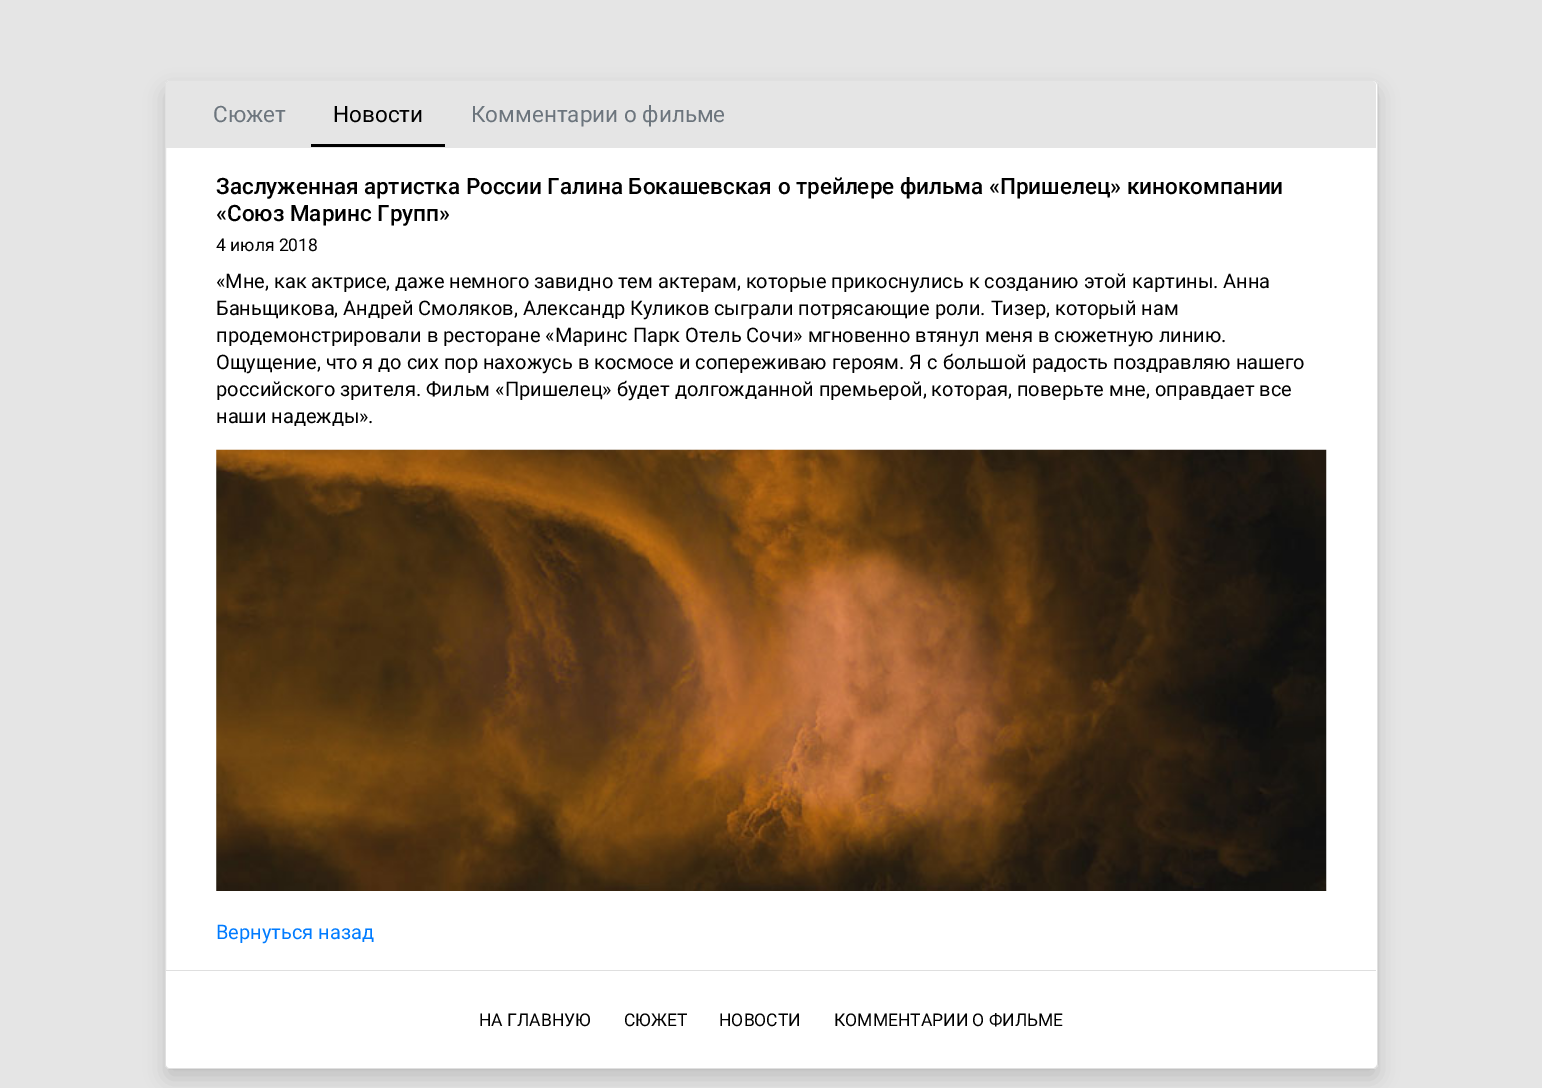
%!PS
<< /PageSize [1542 1088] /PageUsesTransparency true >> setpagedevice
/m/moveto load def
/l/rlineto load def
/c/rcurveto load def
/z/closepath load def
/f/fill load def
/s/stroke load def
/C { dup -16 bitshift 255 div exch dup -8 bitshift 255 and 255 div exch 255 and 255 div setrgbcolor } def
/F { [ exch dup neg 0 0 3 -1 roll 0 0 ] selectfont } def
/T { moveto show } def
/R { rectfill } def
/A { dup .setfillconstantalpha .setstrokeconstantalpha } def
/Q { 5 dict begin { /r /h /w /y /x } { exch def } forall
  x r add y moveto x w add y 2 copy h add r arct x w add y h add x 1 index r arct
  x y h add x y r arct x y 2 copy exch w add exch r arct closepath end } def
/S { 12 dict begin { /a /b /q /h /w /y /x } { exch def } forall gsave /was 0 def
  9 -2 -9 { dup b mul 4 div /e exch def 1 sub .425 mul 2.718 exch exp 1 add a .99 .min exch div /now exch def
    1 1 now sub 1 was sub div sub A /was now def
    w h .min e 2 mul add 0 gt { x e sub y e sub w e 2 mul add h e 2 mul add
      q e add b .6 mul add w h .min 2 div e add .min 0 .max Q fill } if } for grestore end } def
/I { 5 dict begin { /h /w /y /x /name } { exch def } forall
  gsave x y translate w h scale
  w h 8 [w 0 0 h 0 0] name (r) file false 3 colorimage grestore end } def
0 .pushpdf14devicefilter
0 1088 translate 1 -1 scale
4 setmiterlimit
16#E5E5E5 C
0 0 1542 1088 R
16#000000 C
165 90 1213 989 5 10 .15 S
16#FFFFFF C
165 80 1213 989 5 Q f
0.12 A
16#000000 C
165.5 80.5 1212 988 4.5 Q s
1 A
16#E5E5E5 C
170 81 m 1202 0 l 2 0 4 2 4 4 c 0 63 l -1210 0 l 0 -63 l 0 -2 2 -4 4 -4 c z f
/Roboto-Regular 22.5 F
16#6C757D C
(Сюжет) 213 122 T
16#000000 C
(Новости) 333 122 T
311 144 134 3 R
16#6C757D C
(Комментарии о фильме) 471 122 T
/Roboto-Medium 22.5 F
16#000000 C
(Заслуженная артистка России Галина Бокашевская о трейлере фильма «Пришелец» кинокомпании) 216 194 T
(«Союз Маринс Групп») 216 221 T
/Roboto-Regular 17.5 F
(4 июля 2018) 216 251 T
/Roboto-Regular 20 F
(«Мне, как актрисе, даже немного завидно тем актерам, которые прикоснулись к созданию этой картины. Анна) 216 288 T
(Баньщикова, Андрей Смоляков, Александр Куликов сыграли потрясающие роли. Тизер, который нам) 216 315 T
(продемонстрировали в ресторане «Маринс Парк Отель Сочи» мгновенно втянул меня в сюжетную линию.) 216 342 T
(Ощущение, что я до сих пор нахожусь в космосе и сопереживаю героям. Я с большой радость поздравляю нашего) 216 369 T
(российского зрителя. Фильм «Пришелец» будет долгожданной премьерой, которая, поверьте мне, оправдает все) 216 396 T
(наши надежды».) 216 423 T
(1.rgb) 216 449 1111 442 I
16#007BFF C
(Вернуться назад) 216 939 T
16#FFFFFF C
166 970 m 1210 0 l 0 94 l 0 2 -2 4 -4 4 c -1202 0 l -2 0 -4 -2 -4 -4 c z f
16#DFDFDF C
166 970 1210 1 R
/Roboto-Regular 17.5 F
16#000000 C
(НА ГЛАВНУЮ) 479 1026 T
(СЮЖЕТ) 624 1026 T
(НОВОСТИ) 719 1026 T
(КОММЕНТАРИИ О ФИЛЬМЕ) 834 1026 T
.poppdf14devicefilter showpage
